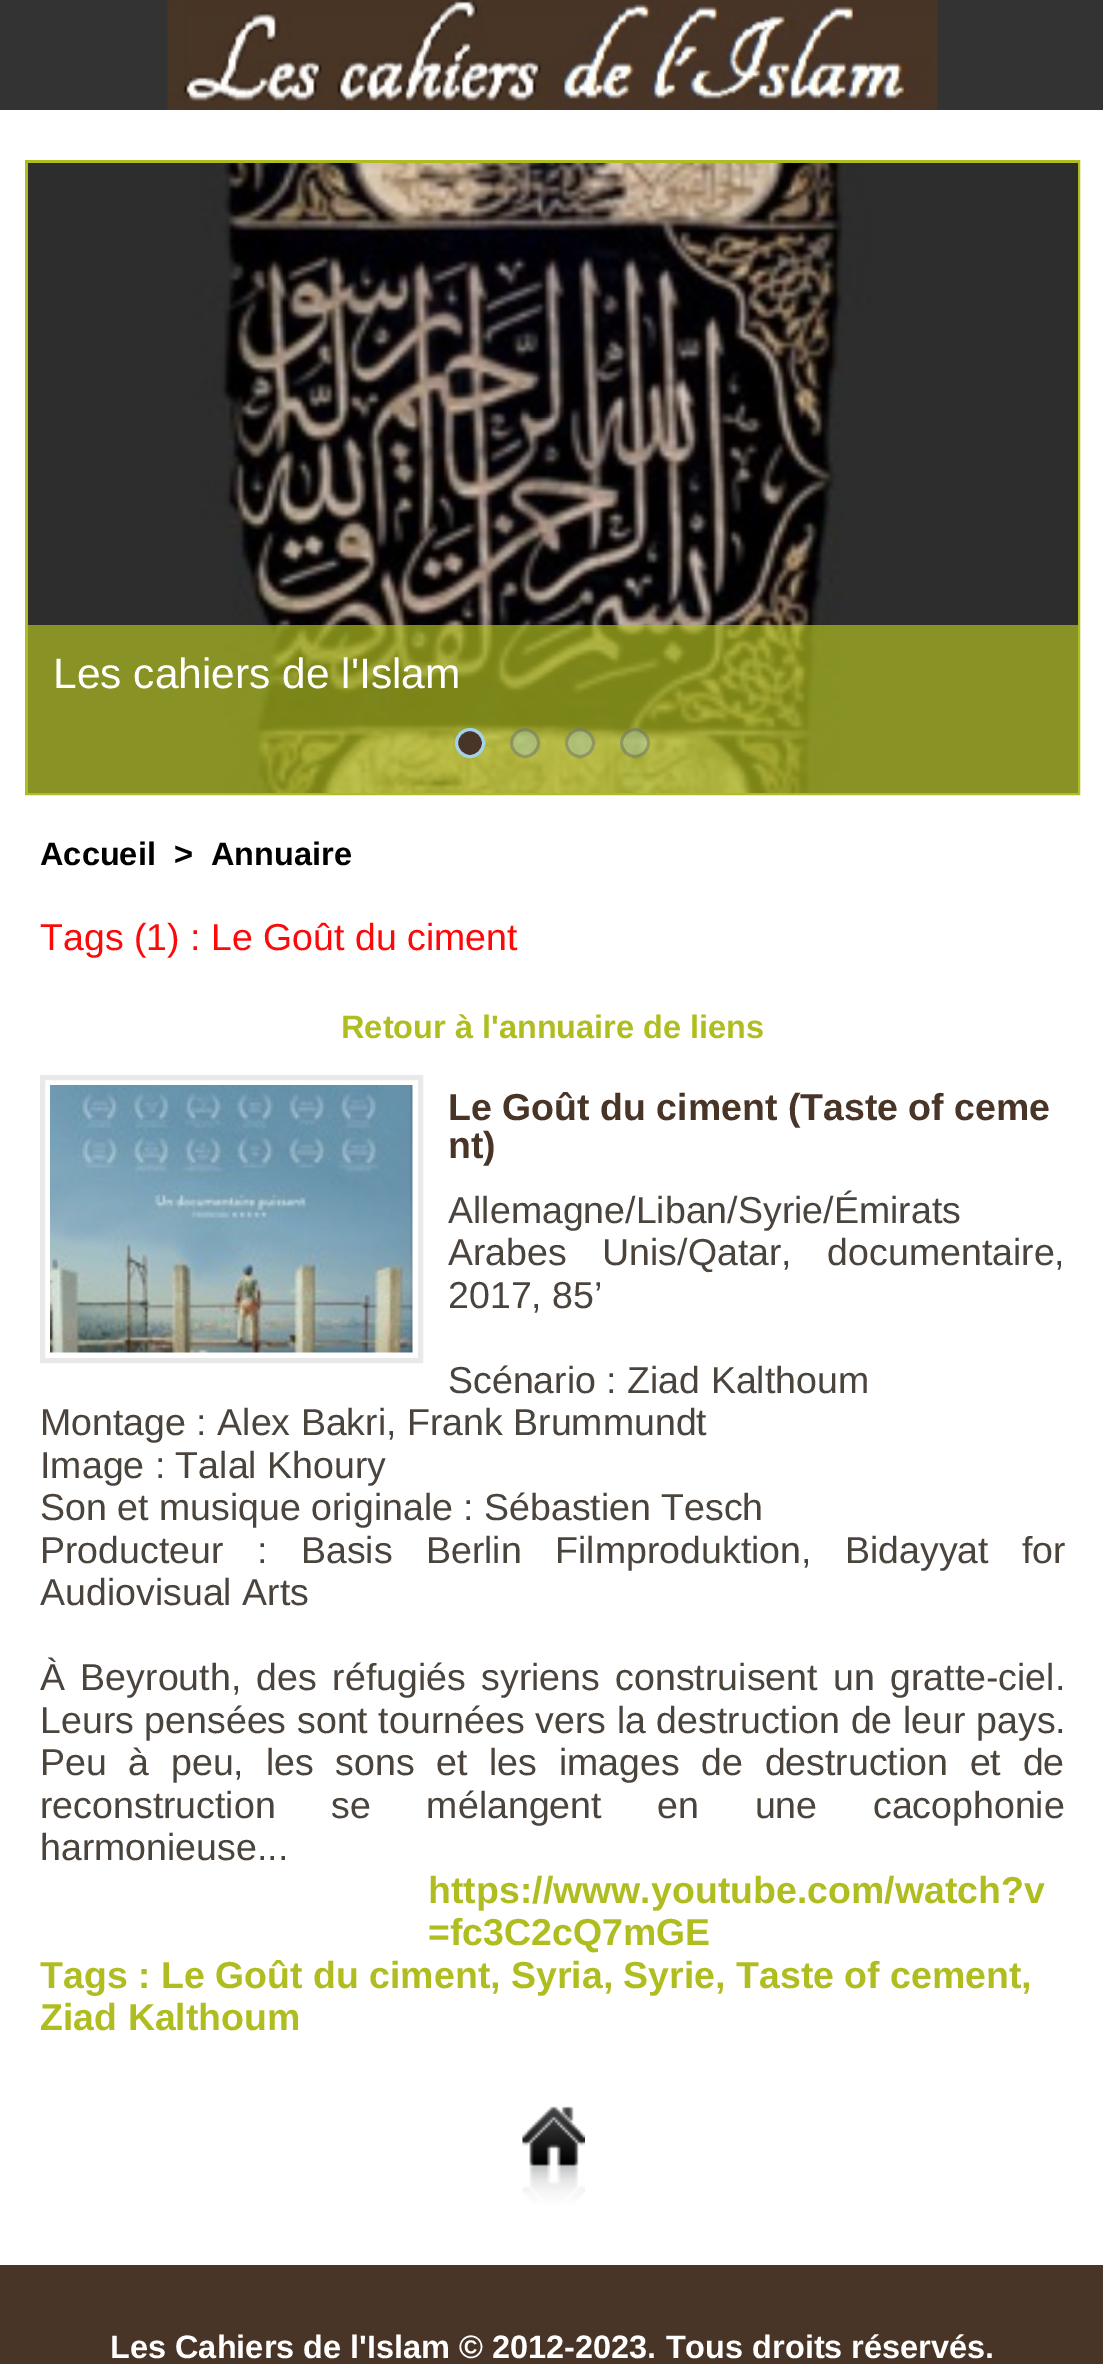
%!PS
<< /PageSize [1103 2364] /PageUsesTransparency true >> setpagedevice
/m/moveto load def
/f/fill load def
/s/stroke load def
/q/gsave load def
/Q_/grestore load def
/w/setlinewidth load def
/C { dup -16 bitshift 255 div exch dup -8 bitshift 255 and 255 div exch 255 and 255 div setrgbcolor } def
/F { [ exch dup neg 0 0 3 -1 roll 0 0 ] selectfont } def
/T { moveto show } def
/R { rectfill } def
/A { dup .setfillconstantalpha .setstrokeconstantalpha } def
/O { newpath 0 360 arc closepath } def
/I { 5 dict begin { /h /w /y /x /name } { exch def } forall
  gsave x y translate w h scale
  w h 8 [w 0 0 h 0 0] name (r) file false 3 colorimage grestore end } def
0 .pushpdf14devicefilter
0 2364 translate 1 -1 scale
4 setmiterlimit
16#FFFFFF C
0 0 1103 2364 R
16#333333 C
0 0 1103 110 R
(1.rgb) 167 0 771 110 I
16#B0BD21 C
3 w
26.5 161.5 1052 632 rectstroke
(2.rgb) 28 163 1050 630 I
0.7 A
16#AFBD21 C
28 625 1050 168 R
/LiberationSans-Regular 42.5 F
1 A
16#FFFFFF C
(Les cahiers de l'Islam) 53 688 T
16#483527 C
470 743 13.5 O q f Q_
16#A3D2EC C
s
0.3 A
525 743 15 O f
16#483527 C
525 743 13.5 O s
16#A3D2EC C
580 743 15 O f
16#483527 C
580 743 13.5 O s
16#A3D2EC C
635 743 15 O f
16#483527 C
635 743 13.5 O s
/LiberationSans-Bold 32.5 F
1 A
16#000000 C
(Accueil) 40 865 T
(>) 174 865 T
(Annuaire) 211 865 T
/LiberationSans-Regular 37.5 F
16#FC0A0A C
(Tags \(1\) : Le Goût du ciment) 40 950 T
/LiberationSans-Bold 32.5 F
16#AFBD21 C
(Retour à l'annuaire de liens) 341 1038 T
16#E9E9E9 C
5 w
42.5 1077.5 378 283 rectstroke
(3.rgb) 50 1085 363 268 I
/LiberationSans-Bold 37.5 F
16#483527 C
(Le Goût du ciment \(Taste of ceme) 448 1120 T
(nt\)) 448 1158 T
/LiberationSans-Regular 37.5 F
16#4A443D C
(Allemagne/Liban/Syrie/Émirats) 448 1223 T
448 1265 m 25 0 32 (Arabes Unis/Qatar, documentaire,) widthshow
(2017, 85’) 448 1308 T
(Scénario : Ziad Kalthoum) 448 1393 T
(Montage : Alex Bakri, Frank Brummundt) 40 1435 T
(Image : Talal Khoury) 40 1478 T
(Son et musique originale : Sébastien Tesch) 40 1520 T
40 1563 m 23 0 32 (Producteur : Basis Berlin Filmproduktion, Bidayyat for) widthshow
(Audiovisual Arts) 40 1605 T
40 1690 m 5 0 32 (À Beyrouth, des réfugiés syriens construisent un gratte-ciel.) widthshow
40 1733 m .25 0 32 (Leurs pensées sont tournées vers la destruction de leur pays.) widthshow
40 1775 m 11.25 0 32 (Peu à peu, les sons et les images de destruction et de) widthshow
40 1818 m 45.25 0 32 (reconstruction se mélangent en une cacophonie) widthshow
(harmonieuse...) 40 1860 T
/LiberationSans-Bold 37.5 F
16#AFBD21 C
(https://www.youtube.com/watch?v) 428 1903 T
(=fc3C2cQ7mGE) 428 1945 T
(Tags : Le Goût du ciment, Syria, Syrie, Taste of cement,) 40 1988 T
(Ziad Kalthoum) 40 2030 T
(4.rgb) 522 2106 63 98 I
16#483527 C
0 2265 1103 99 R
/LiberationSans-Bold 32.5 F
16#FFFFFF C
(Les Cahiers de l'Islam © 2012-2023. Tous droits réservés.) 110 2358 T
.poppdf14devicefilter showpage
